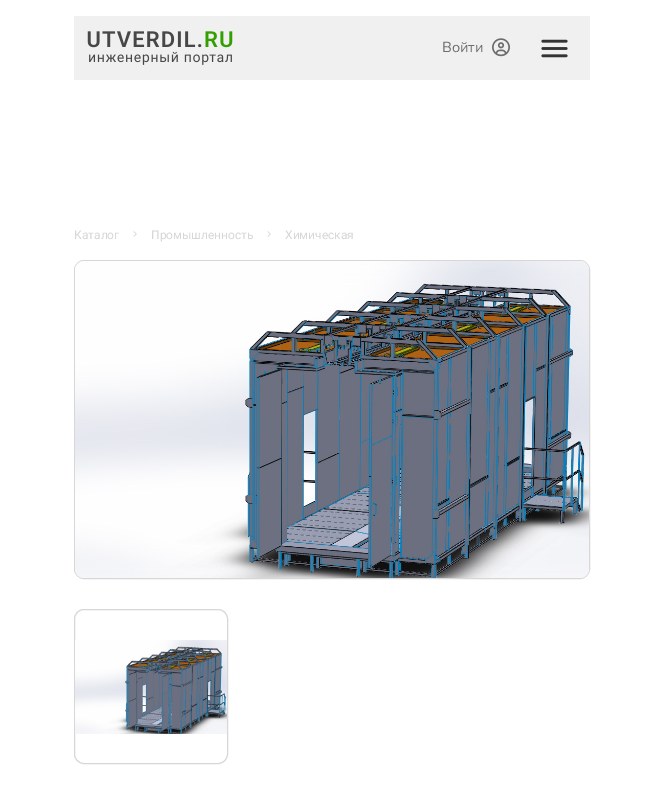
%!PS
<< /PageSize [663 796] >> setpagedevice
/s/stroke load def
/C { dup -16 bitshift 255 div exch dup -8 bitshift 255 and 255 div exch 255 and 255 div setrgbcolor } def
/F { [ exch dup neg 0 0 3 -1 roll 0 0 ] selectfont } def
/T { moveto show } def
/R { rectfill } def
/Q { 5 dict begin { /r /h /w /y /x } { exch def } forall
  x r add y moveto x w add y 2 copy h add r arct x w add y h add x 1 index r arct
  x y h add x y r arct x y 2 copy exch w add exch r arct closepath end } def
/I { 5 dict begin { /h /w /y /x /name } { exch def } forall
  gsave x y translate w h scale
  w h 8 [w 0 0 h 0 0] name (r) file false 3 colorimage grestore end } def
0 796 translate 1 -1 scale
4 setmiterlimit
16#FFFFFF C
0 0 663 796 R
16#F0F0F0 C
74 16 516 64 R
(1.rgb) 87 31 146 34 I
(2.rgb) 541 39 27 19 I
/Nunito-ExtraLight 14.5 F
16#6C6C6C C
(Войти) 442 52 T
(3.rgb) 492 38 18 19 I
/Roboto-Regular 12 F
16#D8D6D6 C
(Каталог) 74 239 T
(4.rgb) 133 231 4 6 I
(Промышленность) 151 239 T
(4.rgb) 267 231 4 6 I
(Химическая) 285 239 T
74.5 260.5 515 318 9.5 Q s
(5.rgb) 75 261 514 317 I
74.5 609.5 153 154 9.5 Q s
(6.rgb) 75 640 152 94 I
showpage
